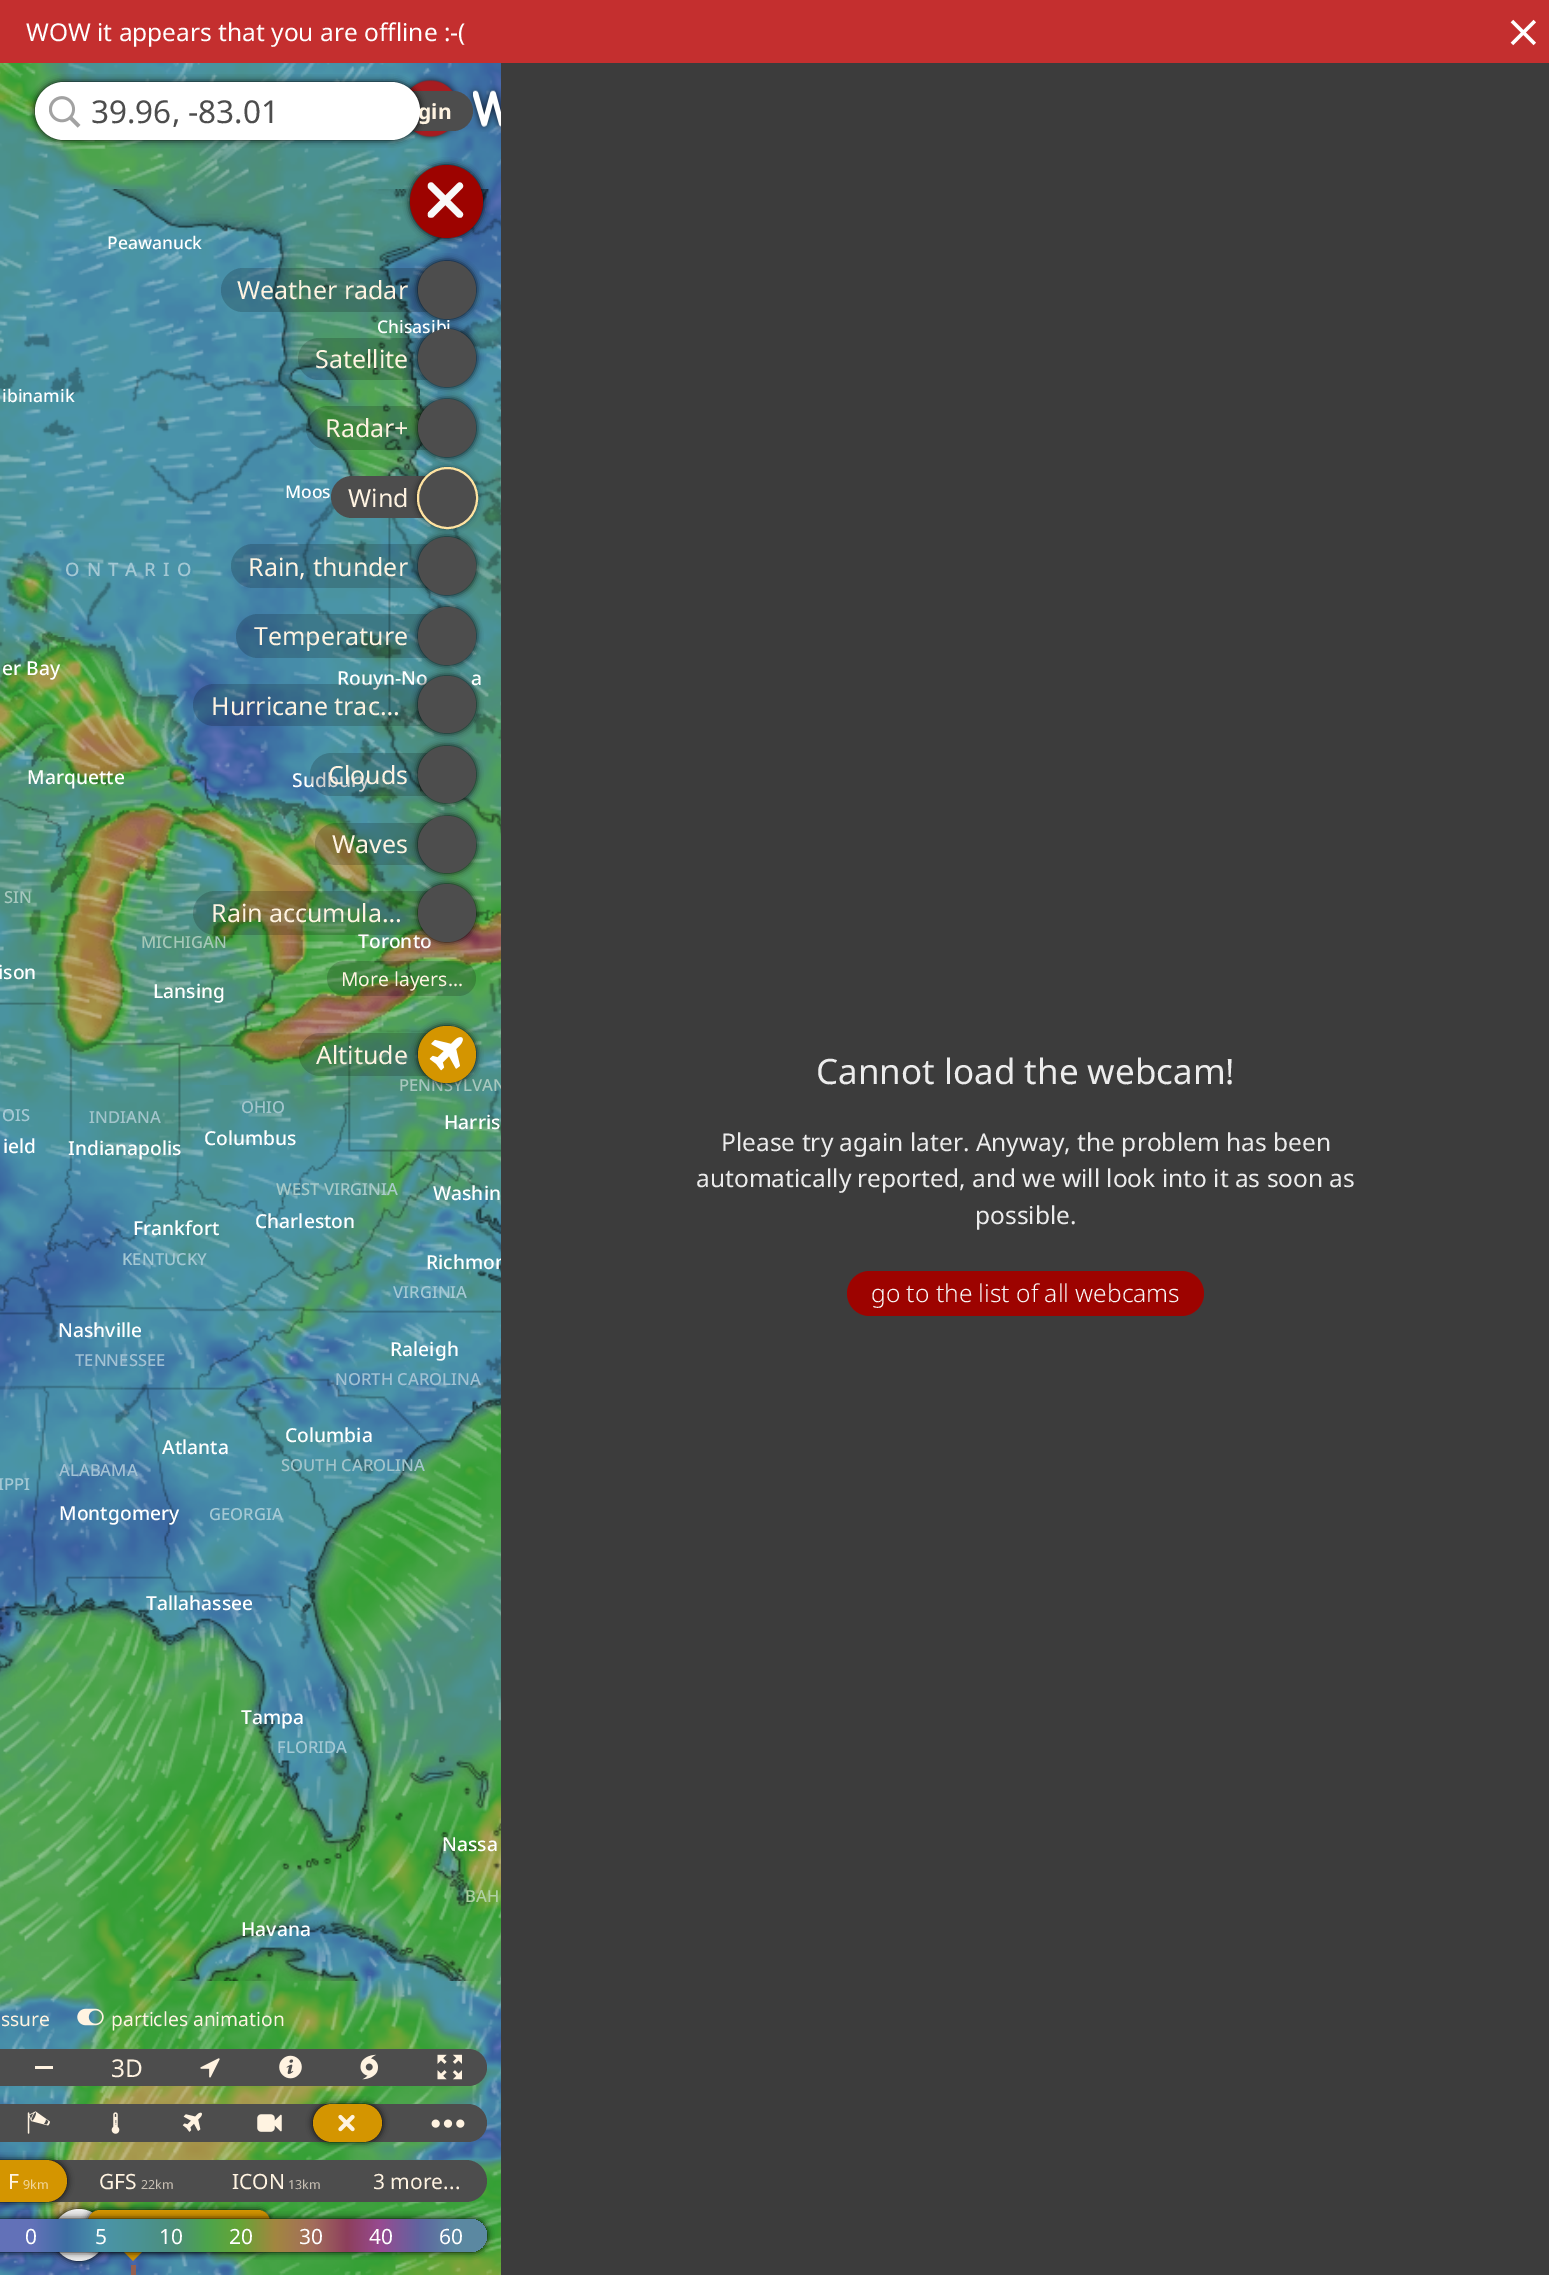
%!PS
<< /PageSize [1549 2275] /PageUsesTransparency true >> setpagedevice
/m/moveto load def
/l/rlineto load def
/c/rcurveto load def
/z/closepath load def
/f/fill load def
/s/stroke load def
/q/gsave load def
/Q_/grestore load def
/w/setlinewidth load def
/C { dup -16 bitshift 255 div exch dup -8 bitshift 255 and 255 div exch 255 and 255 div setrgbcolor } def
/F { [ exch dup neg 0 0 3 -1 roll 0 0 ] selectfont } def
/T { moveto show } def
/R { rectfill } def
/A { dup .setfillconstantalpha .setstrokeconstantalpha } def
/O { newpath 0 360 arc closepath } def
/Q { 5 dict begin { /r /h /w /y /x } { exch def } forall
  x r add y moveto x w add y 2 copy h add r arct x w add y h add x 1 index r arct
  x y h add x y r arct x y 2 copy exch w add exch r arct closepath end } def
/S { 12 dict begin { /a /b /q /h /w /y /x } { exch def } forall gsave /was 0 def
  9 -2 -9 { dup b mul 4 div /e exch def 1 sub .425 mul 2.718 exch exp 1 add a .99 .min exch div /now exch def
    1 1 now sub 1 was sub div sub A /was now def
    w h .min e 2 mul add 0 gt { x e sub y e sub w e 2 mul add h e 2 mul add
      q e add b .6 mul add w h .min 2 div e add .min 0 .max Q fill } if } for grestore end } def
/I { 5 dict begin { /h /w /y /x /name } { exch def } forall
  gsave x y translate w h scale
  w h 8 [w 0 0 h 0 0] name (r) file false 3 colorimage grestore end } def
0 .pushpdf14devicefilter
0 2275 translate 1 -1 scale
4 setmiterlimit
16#FFFFFF C
0 0 1549 2275 R
16#C42F2F C
0 0 1549 63 R
/NotoSans-Regular 24.5 F
16#FFFFFF C
(WOW it appears that you are offline :-\() 26 41 T
(1.rgb) 1510 19 26 27 I
(21.rgb) 0 637 420 448 I
(22.rgb) 420 637 81 448 I
(23.rgb) 0 1085 420 448 I
(24.rgb) 420 1085 81 448 I
(17.rgb) 0 63 420 126 I
(18.rgb) 420 63 81 126 I
(19.rgb) 0 189 420 448 I
(20.rgb) 420 189 81 448 I
(25.rgb) 0 1533 420 448 I
(26.rgb) 420 1533 81 448 I
(27.rgb) 0 1981 420 294 I
(28.rgb) 420 1981 81 294 I
(29.rgb) 0 63 501 2212 I
(32.rgb) 0 637 420 448 I
(34.rgb) 0 1085 420 448 I
(35.rgb) 420 1088 81 374 I
/NotoSans-Medium 16.6 F
16#A7C8BE C
(PENNSYLVAN) 399 1091 T
/NotoSans-Medium 19.25 F
16#FFFFFF C
(Richmon) 426 1269 T
16#3C3C3C C
501 63 1048 2212 R
/NotoSans-Regular 35 F
16#ECECEC C
(Cannot load the webcam!) 816 1084 T
/NotoSans-Regular 24.5 F
(Please try again later. Anyway, the problem has been) 721 1151 T
(automatically reported, and we will look into it as soon as) 696 1187 T
(possible.) 975 1224 T
16#9D0300 C
847 1271 357 45 22.5 Q f
/NotoSans-Light 24.5 F
16#F8F8F8 C
(go to the list of all webcams) 871 1302 T
(3.rgb) 405 74 57 69 I
(4.rgb) 467 85 34 47 I
16#4D4D4D C
341 91 132 40 20 Q f
16#000000 C
35 82 385 58 29 3.5 1 S
/NotoSans-Bold 21 F
16#FFF3E1 C
(gin) 418 119 T
16#FFFFFF C
35 82 385 58 29 Q f
(2.rgb) 49 96 32 32 I
/NotoSans-Regular 31.5 F
16#4D4D4D C
(39.96, -83.01) 91 123 T
(30.rgb) 0 189 420 448 I
(31.rgb) 420 189 81 420 I
16#000000 C
410 165 73 73 36.5 3.5 1 S
16#9D0300 C
446.5 201.5 36.5 O f
16#F8F8F8 C
433.5 183.5 m 28.5 28.5 l 1.5 1.5 1.5 3.5 0 5 c -1 1 -3.5 1 -4.5 0 c -29 -28.5 l -1 -1.5 -1 -3.5 0 -5 c 1.5 -1.5 3.5 -1.5 5 0 c z f
428.5 212 m 29 -28.5 l 1 -1.5 3.5 -1.5 4.5 0 c 1.5 1.5 1.5 3.5 0 5 c -28.5 28.5 l -1.5 1 -3.5 1 -5 0 c -1 -1.5 -1 -3.5 0 -5 c z f
0.18 A
16#000000 C
243 268 m 200 0 l 0 44 l -200 0 l -12 0 -22 -10 -22 -22 c 0 -12 10 -22 22 -22 c z f
/NotoSans-Regular 25 F
1 A
16#FFF3E1 C
(Weather radar) 237 299 T
16#000000 C
418 261 58 58 29 3.5 1 S
16#4D4D4D C
447 290 29 O f
0.18 A
16#000000 C
319 338 m 124 0 l 0 42 l -124 0 l -11.5 0 -21 -9.5 -21 -21 c 0 -11.5 9.5 -21 21 -21 c z f
1 A
16#FFF3E1 C
(Satellite) 315 368 T
16#000000 C
418 329 58 58 29 3.5 1 S
/NotoSans-Medium 17.5 F
16#FFFFFF C
(Chisasibi) 377 333 T
16#4D4D4D C
447 358 29 O f
0.18 A
16#000000 C
328 406 m 115 0 l 0 44 l -115 0 l -12 0 -22 -10 -22 -22 c 0 -12 10 -22 22 -22 c z f
/NotoSans-Regular 25 F
1 A
16#FFF3E1 C
(Radar+) 325 437 T
16#000000 C
418 399 58 58 29 3.5 1 S
16#4D4D4D C
447 428 29 O f
352 476 m 91 0 l 0 42 l -91 0 l -11.5 0 -21 -9.5 -21 -21 c 0 -11.5 9.5 -21 21 -21 c z f
16#FFF3E1 C
(Wind) 348 507 T
16#000000 C
418 469 58 58 29 3.5 1 S
16#4D4D4D C
418 468 59 60 29.5 Q q f Q_
16#FFE3A1 C
2 w
s
0.18 A
16#000000 C
253 544 m 190 0 l 0 44 l -190 0 l -12 0 -22 -10 -22 -22 c 0 -12 10 -22 22 -22 c z f
1 A
16#FFF3E1 C
(Rain, thunder) 248 576 T
16#000000 C
418 537 58 58 29 3.5 1 S
16#4D4D4D C
447 566 29 O f
0.18 A
16#000000 C
258 614 m 185 0 l 0 44 l -185 0 l -12 0 -22 -10 -22 -22 c 0 -12 10 -22 22 -22 c z f
1 A
16#FFF3E1 C
(Temperature) 254 645 T
(33.rgb) 420 676 81 357 I
16#000000 C
418 607 58 58 29 3.5 1 S
16#4D4D4D C
447 636 29 O f
/NotoSans-Medium 19.25 F
16#FFFFFF C
(Rouyn-No) 337 685 T
0.18 A
16#000000 C
214 684 m 229 0 l 0 42 l -229 0 l -11.5 0 -21 -9.5 -21 -21 c 0 -11.5 9.5 -21 21 -21 c z f
/NotoSans-Regular 25 F
1 A
16#FFF3E1 C
(Hurricane trac…) 211 715 T
16#000000 C
418 676 58 57 28.5 3.5 1 S
/NotoSans-Medium 19.25 F
16#FFFFFF C
(a) 471 685 T
16#4D4D4D C
418 676 58 57 28.5 Q f
16#FFFFFF C
(Sudbury) 292 787 T
0.18 A
16#000000 C
331.5 753 m 111.5 0 l 0 43 l -111.5 0 l -12 0 -21.5 -9.5 -21.5 -21.5 c 0 -12 9.5 -21.5 21.5 -21.5 c z f
/NotoSans-Regular 25 F
1 A
16#FFF3E1 C
(Clouds) 328 784 T
16#000000 C
418 746 58 57 28.5 3.5 1 S
16#4D4D4D C
418 746 58 57 28.5 Q f
0.18 A
16#000000 C
336 823 m 107 0 l 0 42 l -107 0 l -11.5 0 -21 -9.5 -21 -21 c 0 -11.5 9.5 -21 21 -21 c z f
1 A
16#FFF3E1 C
(Waves) 332 853 T
16#000000 C
418 816 58 57 28.5 3.5 1 S
16#4D4D4D C
418 816 58 57 28.5 Q f
/NotoSans-Medium 19.25 F
16#FFFFFF C
(Toronto) 358 948 T
0.18 A
16#000000 C
215 891 m 228 0 l 0 44 l -228 0 l -12 0 -22 -10 -22 -22 c 0 -12 10 -22 22 -22 c z f
/NotoSans-Regular 25 F
1 A
16#FFF3E1 C
(Rain accumula…) 211 922 T
16#000000 C
418 884 58 58 29 3.5 1 S
16#4D4D4D C
447 913 29 O f
0.18 A
16#000000 C
327 961 149 35 17.5 Q f
/NotoSans-Regular 19.25 F
1 A
16#FFF3E1 C
(More layers...) 341 986 T
0.18 A
16#000000 C
320.5 1033 m 122.5 0 l 0 43 l -122.5 0 l -12 0 -21.5 -9.5 -21.5 -21.5 c 0 -12 9.5 -21.5 21.5 -21.5 c z f
/NotoSans-Regular 25 F
1 A
16#FFF3E1 C
(Altitude) 316 1064 T
16#000000 C
418 1026 58 57 28.5 3.5 1 S
16#D49500 C
418 1026 58 57 28.5 Q f
(5.rgb) 429 1037 34 34 I
/NotoSans-Regular 19.25 F
16#FFF3E1 C
(ssure) 1 2026 T
(6.rgb) 77 2008 27 18 I
(particles animation) 111 2026 T
16#4D4D4D C
-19 2049 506 37 18.5 Q f
16#FFF3E1 C
35 2066 18 3 R
/NotoSans-Regular 24.5 F
(3D) 111 2077 T
(7.rgb) 200 2058 20 20 I
(8.rgb) 279 2055 23 24 I
(9.rgb) 360 2054 18 26 I
(10.rgb) 437 2054 25 26 I
16#4D4D4D C
-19 2104 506 38 19 Q f
(11.rgb) 27 2111 23 23 I
(12.rgb) 111 2112 9 22 I
(13.rgb) 182 2112 20 20 I
(14.rgb) 257 2114 25 18 I
16#000000 C
313 2104 69 38 19 3.5 1 S
16#D49500 C
313 2104 69 38 19 Q f
(15.rgb) 338 2114 17 18 I
(16.rgb) 431 2119 34 9 I
16#000000 C
53 2209 52 52 26 3.5 1 S
16#ECECEC C
79 2235 26 O f
16#000000 C
88 2210 182 41 12 3.5 1 S
16#4D4D4D C
-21 2160 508 42 21 Q f
16#000000 C
-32 2160 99 42 21 3.5 1 S
16#D49500 C
-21 2160 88 42 21 Q f
/NotoSans-Regular 21 F
16#FFF3E1 C
(F) 8 2189 T
/NotoSans-Regular 12.5 F
16#F2D79E C
(9km) 23 2189 T
/NotoSans-Regular 21 F
16#FFF3E1 C
(GFS) 99 2189 T
/NotoSans-Regular 12.5 F
16#CAC1B5 C
(22km) 141 2189 T
/NotoSans-Regular 21 F
16#FFF3E1 C
(ICON) 232 2189 T
/NotoSans-Regular 12.5 F
16#CAC1B5 C
(13km) 288 2189 T
/NotoSans-Regular 21 F
16#FFF3E1 C
(3 more...) 373 2189 T
16#D49500 C
88 2210 182 41 12 Q f
122.5 2250.5 m 21 0 l -10.5 10.5 l z f
16#000000 C
-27 2219 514 33 16.5 3.5 1 S
q -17 2219 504 33 16.5 Q clip newpath
<< /ShadingType 2 /ColorSpace /DeviceRGB /Coords [-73 2236 487 2236] /Extend [true true] /Function << /FunctionType 3 /Domain [0 1] /Functions [<< /FunctionType 2 /Domain [0 1] /C0 [.384 .443 .722] /C1 [.384 .443 .722] /N 1 >> << /FunctionType 2 /Domain [0 1] /C0 [.384 .443 .722] /C1 [.239 .431 .639] /N 1 >> << /FunctionType 2 /Domain [0 1] /C0 [.239 .431 .639] /C1 [.29 .58 .667] /N 1 >> << /FunctionType 2 /Domain [0 1] /C0 [.29 .58 .667] /C1 [.29 .573 .58] /N 1 >> << /FunctionType 2 /Domain [0 1] /C0 [.29 .573 .58] /C1 [.302 .557 .486] /N 1 >> << /FunctionType 2 /Domain [0 1] /C0 [.302 .557 .486] /C1 [.298 .643 .298] /N 1 >> << /FunctionType 2 /Domain [0 1] /C0 [.298 .643 .298] /C1 [.404 .643 .212] /N 1 >> << /FunctionType 2 /Domain [0 1] /C0 [.404 .643 .212] /C1 [.635 .529 .251] /N 1 >> << /FunctionType 2 /Domain [0 1] /C0 [.635 .529 .251] /C1 [.635 .427 .361] /N 1 >> << /FunctionType 2 /Domain [0 1] /C0 [.635 .427 .361] /C1 [.553 .247 .361] /N 1 >> << /FunctionType 2 /Domain [0 1] /C0 [.553 .247 .361] /C1 [.592 .294 .569] /N 1 >> << /FunctionType 2 /Domain [0 1] /C0 [.592 .294 .569] /C1 [.373 .392 .627] /N 1 >> << /FunctionType 2 /Domain [0 1] /C0 [.373 .392 .627] /C1 [.357 .533 .631] /N 1 >> << /FunctionType 2 /Domain [0 1] /C0 [.357 .533 .631] /C1 [.357 .533 .631] /N 1 >>] /Bounds [.19 .25 .31 .38 .44 .5 .56 .62 .69 .75 .81 .88 .94] /Encode [0 1 0 1 0 1 0 1 0 1 0 1 0 1 0 1 0 1 0 1 0 1 0 1 0 1 0 1] >> >> shfill Q_
16#FFFFFF C
(0) 25 2244 T
(5) 95 2244 T
(10) 159 2244 T
(20) 229 2244 T
(30) 299 2244 T
(40) 369 2244 T
(60) 439 2244 T
(36.rgb) 0 1533 420 448 I
(37.rgb) 420 1755 81 226 I
/NotoSans-Medium 17.5 F
(Peawanuck) 107 249 T
(ibinamik) 2 402 T
(Moos) 285 498 T
/NotoSans-Medium 18.5 F
16#A4C8D4 C
65 576 m 7 0 (ONTARIO) ashow
/NotoSans-Medium 19.25 F
16#FFFFFF C
(er Bay) 2 675 T
(Marquette) 27 784 T
/NotoSans-Medium 16.6 F
16#A7C8BE C
(SIN) 4 903 T
16#A5C7B8 C
(MICHIGAN) 141 948 T
/NotoSans-Medium 19.25 F
16#FFFFFF C
(ison) -2 979 T
(Lansing) 153 998 T
(Harris) 444 1129 T
(Washin) 433 1200 T
/NotoSans-Medium 16.6 F
16#A4C8D4 C
(VIRGINIA) 393 1298 T
/NotoSans-Medium 19.25 F
16#FFFFFF C
(Raleigh) 390 1356 T
/NotoSans-Medium 16.6 F
16#A4C8D4 C
(OIS) 2 1121 T
16#A2C4CB C
(INDIANA) 89 1123 T
(OHIO) 241 1113 T
/NotoSans-Medium 19.25 F
16#FFFFFF C
(ield) 3 1153 T
(Indianapolis) 68 1155 T
(Columbus) 204 1145 T
/NotoSans-Medium 16.6 F
16#A8CAC9 C
(WEST VIRGINIA) 276 1195 T
/NotoSans-Medium 19.25 F
16#FFFFFF C
(Frankfort) 133 1235 T
(Charleston) 255 1228 T
/NotoSans-Medium 16.6 F
16#A4C8D4 C
(KENTUCKY) 122 1265 T
/NotoSans-Medium 19.25 F
16#FFFFFF C
(Nashville) 58 1337 T
/NotoSans-Medium 16.6 F
16#A2C1D3 C
(TENNESSEE) 75 1366 T
(NORTH CAROLINA) 335 1385 T
/NotoSans-Medium 19.25 F
16#FFFFFF C
(Columbia) 285 1442 T
(Atlanta) 162 1454 T
/NotoSans-Medium 16.6 F
16#A2C1D3 C
(ALABAMA) 59 1476 T
16#A2C4CB C
(SOUTH CAROLINA) 281 1471 T
16#A4C8D4 C
(IPPI) -2 1490 T
/NotoSans-Medium 19.25 F
16#FFFFFF C
(Montgomery) 59 1520 T
/NotoSans-Medium 16.6 F
16#A4C8D4 C
(GEORGIA) 209 1520 T
/NotoSans-Medium 19.25 F
16#FFFFFF C
(Tallahassee) 146 1610 T
(Tampa) 241 1724 T
/NotoSans-Medium 16.6 F
16#A4C8D4 C
(FLORIDA) 277 1753 T
/NotoSans-Medium 19.25 F
16#FFFFFF C
(Havana) 241 1936 T
(Nassa) 442 1851 T
/NotoSans-Medium 16.6 F
16#AFD0A4 C
(BAH) 465 1902 T
16#946051 C
131 2265 5 10 R
.poppdf14devicefilter showpage
